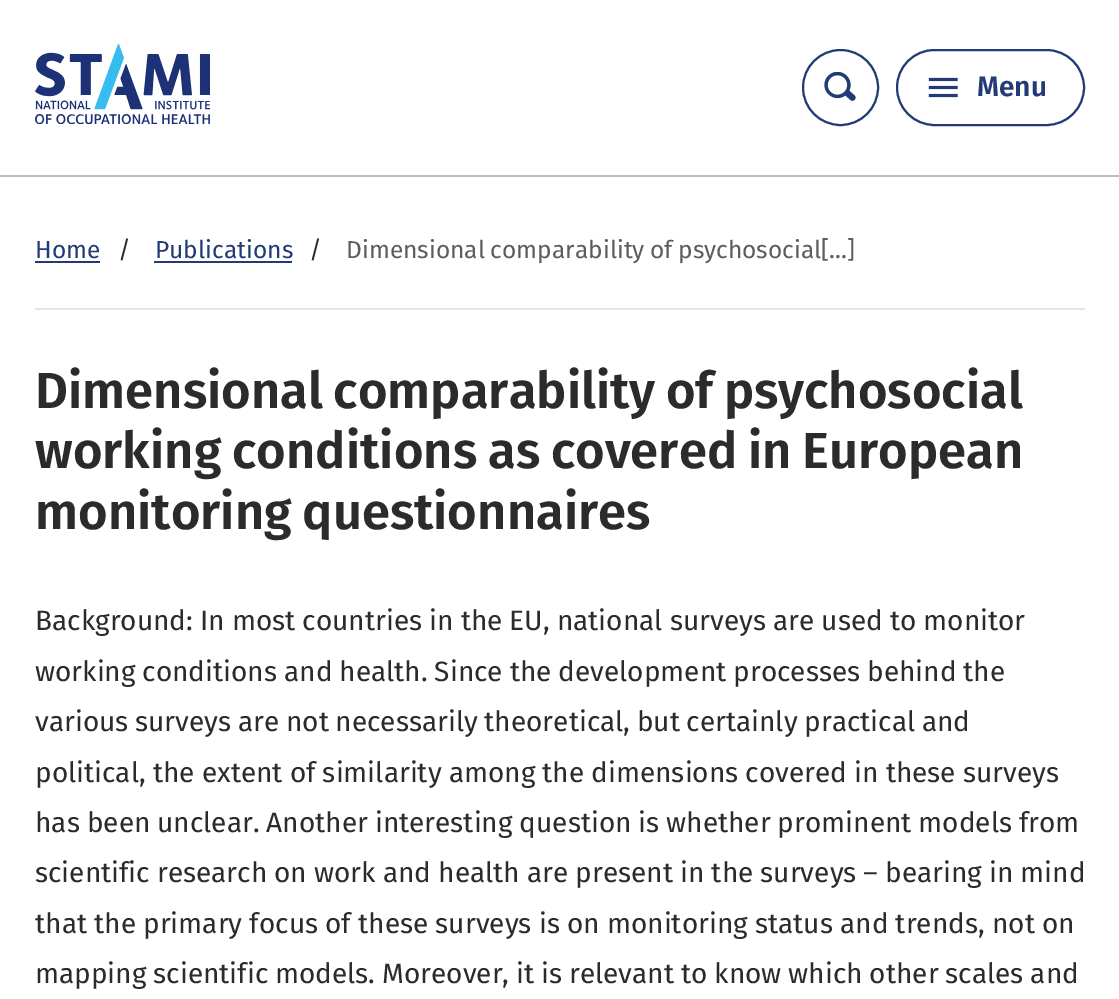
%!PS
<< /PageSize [1119 999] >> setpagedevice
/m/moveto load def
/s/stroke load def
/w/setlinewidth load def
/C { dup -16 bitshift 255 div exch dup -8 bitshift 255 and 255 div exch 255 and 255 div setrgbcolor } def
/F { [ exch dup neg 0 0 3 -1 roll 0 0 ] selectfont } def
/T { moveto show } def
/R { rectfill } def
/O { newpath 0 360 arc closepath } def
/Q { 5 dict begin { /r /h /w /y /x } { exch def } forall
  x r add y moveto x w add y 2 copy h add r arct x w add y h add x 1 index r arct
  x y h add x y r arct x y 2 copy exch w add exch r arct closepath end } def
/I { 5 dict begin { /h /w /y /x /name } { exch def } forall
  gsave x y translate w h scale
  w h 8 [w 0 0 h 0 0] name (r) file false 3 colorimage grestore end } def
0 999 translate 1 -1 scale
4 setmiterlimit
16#FFFFFF C
0 0 1119 999 R
16#BCBCBC C
0 175 1119 2 R
(1.rgb) 35 44 175 80 I
16#223A76 C
2 w
840.5 87.5 37.5 O s
(2.rgb) 824 72 32 29 I
897 50 187 75 37.5 Q s
(3.rgb) 928 77 30 21 I
/FiraSans-SemiBold 28 F
(Menu) 977 96 T
16#E6E6E6 C
35 308 1050 2 R
/FiraSans-Regular 24.5 F
16#223A76 C
(Home) 35 258 T
35 261 65 2 R
16#2B2B2B C
(/) 118 258 T
16#223A76 C
(Publications) 155 258 T
154 261 138 2 R
16#2B2B2B C
(/) 309 258 T
16#5D5D5D C
346 258 m -1 0 32 (Dimensional comparability of psychosocial[...]) widthshow
/FiraSans-SemiBold 50.75 F
16#2B2B2B C
35 408 m -2 0 32 (Dimensional comparability of psychosocial) widthshow
35 468 m -1.5 0 32 (working conditions as covered in European) widthshow
35 529 m -2 0 32 (monitoring questionnaires) widthshow
/FiraSans-Regular 28 F
35 630 m -.3 0 32 (Background: In most countries in the EU, national surveys are used to monitor) widthshow
35 681 m -.5 0 32 (working conditions and health. Since the development processes behind the) widthshow
35 731 m -.75 0 32 (various surveys are not necessarily theoretical, but certainly practical and) widthshow
35 782 m -.25 0 32 (political, the extent of similarity among the dimensions covered in these surveys) widthshow
35 832 m -.5 0 32 (has been unclear. Another interesting question is whether prominent models from) widthshow
35 882 m -.3 0 32 (scientific research on work and health are present in the surveys – bearing in mind) widthshow
35 933 m -.2 0 32 (that the primary focus of these surveys is on monitoring status and trends, not on) widthshow
35 983 m -.5 0 32 (mapping scientific models. Moreover, it is relevant to know which other scales and) widthshow
showpage
